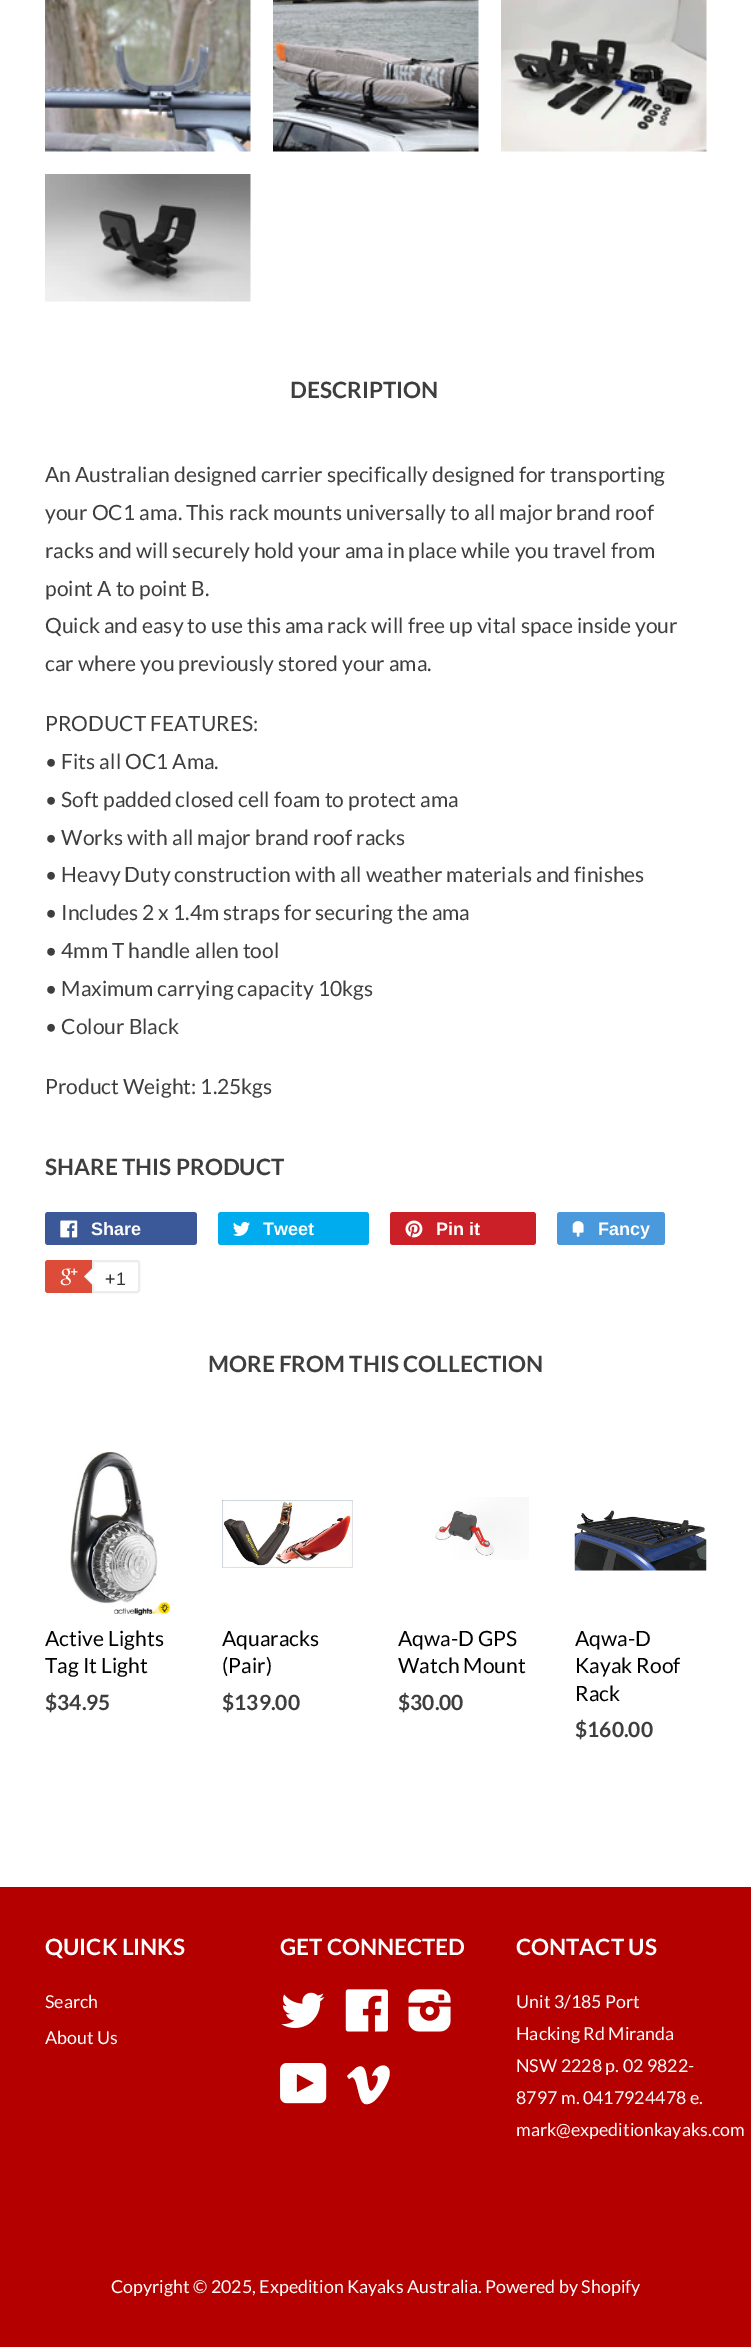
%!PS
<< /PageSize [751 2347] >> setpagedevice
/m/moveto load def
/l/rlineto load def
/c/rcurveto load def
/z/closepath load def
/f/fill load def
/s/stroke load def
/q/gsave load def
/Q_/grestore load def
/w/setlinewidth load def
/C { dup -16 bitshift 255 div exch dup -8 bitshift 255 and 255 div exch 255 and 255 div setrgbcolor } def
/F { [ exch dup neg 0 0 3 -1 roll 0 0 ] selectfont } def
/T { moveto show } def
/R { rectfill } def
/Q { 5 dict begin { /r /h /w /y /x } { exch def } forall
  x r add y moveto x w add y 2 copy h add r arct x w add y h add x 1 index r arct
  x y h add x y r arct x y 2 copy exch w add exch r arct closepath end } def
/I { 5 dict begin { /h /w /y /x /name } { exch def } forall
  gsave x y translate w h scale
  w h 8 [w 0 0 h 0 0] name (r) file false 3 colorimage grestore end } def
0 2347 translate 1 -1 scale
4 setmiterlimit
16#FFFFFF C
0 0 751 2347 R
(1.rgb) 45 0 206 152 I
(2.rgb) 273 0 206 152 I
(3.rgb) 501 0 206 152 I
(4.rgb) 45 174 206 128 I
/Lato-Bold 22.5 F
16#3F3E3E C
(DESCRIPTION) 290 398 T
/Lato-Regular 21 F
(An Australian designed carrier specifically designed for transporting) 45 482 T
(your OC1 ama. This rack mounts universally to all major brand roof) 45 520 T
(racks and will securely hold your ama in place while you travel from) 45 558 T
(point A to point B.) 45 596 T
(Quick and easy to use this ama rack will free up vital space inside your) 45 633 T
(car where you previously stored your ama.) 45 671 T
(PRODUCT FEATURES:) 45 731 T
(• Fits all OC1 Ama.) 45 769 T
(• Soft padded closed cell foam to protect ama) 45 807 T
(• Works with all major brand roof racks) 45 845 T
(• Heavy Duty construction with all weather materials and finishes) 45 882 T
(• Includes 2 x 1.4m straps for securing the ama) 45 920 T
(• 4mm T handle allen tool) 45 958 T
(• Maximum carrying capacity 10kgs) 45 996 T
(• Colour Black) 45 1034 T
(Product Weight: 1.25kgs) 45 1094 T
/Lato-Bold 22.5 F
(SHARE THIS PRODUCT) 45 1175 T
16#3B5998 C
45 1212 152 33 3 Q f
(5.rgb) 60 1220 18 18 I
/LiberationSans-Bold 18 F
16#FFFFFF C
(Share) 91 1235 T
16#00ACED C
218 1212 151 33 3 Q f
(6.rgb) 233 1221 17 15 I
16#FFFFFF C
(Tweet) 263 1235 T
16#CB2027 C
390 1212 146 33 3 Q f
(7.rgb) 405 1220 18 18 I
16#FFFFFF C
(Pin it) 436 1235 T
16#4999DC C
557 1212 108 33 3 Q f
(8.rgb) 572 1221 12 16 I
16#FFFFFF C
(Fancy) 598 1235 T
16#DD4B39 C
45 1260 92 33 3 Q f
(9.rgb) 60 1268 18 18 I
16#FFFFFF C
93 1261 m 44 0 l 1 0 2 1 2 2 c 0 27 l 0 1 -1 2 -2 2 c -44 0 l z q f Q_
16#ECECEC C
2 w
s
93 1267.5 m 0 18 l -9 -9 l z f
16#FFFFFF C
94.5 1267.5 m 0 18 l -9 -9 l z f
/LiberationSans-Regular 18 F
16#333333 C
(+1) 105 1285 T
/Lato-Bold 22.5 F
16#3F3E3E C
(MORE FROM THIS COLLECTION) 208 1372 T
(10.rgb) 70 1452 101 164 I
/Lato-Regular 21 F
16#000000 C
(Active Lights) 45 1646 T
(Tag It Light) 45 1673 T
/Lato-Bold 21 F
16#3F3E3E C
($34.95) 45 1710 T
(11.rgb) 222 1500 131 68 I
/Lato-Regular 21 F
16#000000 C
(Aquaracks) 222 1646 T
(\(Pair\)) 222 1673 T
/Lato-Bold 21 F
16#3F3E3E C
($139.00) 222 1710 T
(12.rgb) 435 1497 94 63 I
/Lato-Regular 21 F
16#000000 C
(Aqwa-D GPS) 398 1646 T
(Watch Mount) 398 1673 T
/Lato-Bold 21 F
16#3F3E3E C
($30.00) 398 1710 T
(13.rgb) 574 1510 133 61 I
/Lato-Regular 21 F
16#000000 C
(Aqwa-D) 575 1646 T
(Kayak Roof) 575 1673 T
(Rack) 575 1701 T
/Lato-Bold 21 F
16#3F3E3E C
($160.00) 575 1737 T
16#B50000 C
0 1887 751 460 R
/Lato-Bold 22.5 F
16#FFFFFF C
(QUICK LINKS) 45 1955 T
/Lato-Regular 17.85 F
(Search) 45 2008 T
(About Us) 45 2044 T
/Lato-Bold 22.5 F
(GET CONNECTED) 280 1955 T
(14.rgb) 281 1992 44 36 I
(15.rgb) 345 1989 43 43 I
(16.rgb) 408 1989 43 43 I
(17.rgb) 280 2063 47 41 I
347 2076 m 2 3 l 3 -2 l 7 1 5 30 16 27 c 6 -1 10 -7 13 -11 c 22 -30 -4 -35 -9 -17 c 12 -5 3 15 -1 15 c -6 -1 -1 -32 -15 -23 c z f
(CONTACT US) 516 1955 T
/Lato-Regular 17.85 F
(Unit 3/185 Port) 516 2008 T
(Hacking Rd Miranda) 516 2040 T
(NSW 2228 p. 02 9822-) 516 2072 T
(8797 m. 0417924478 e.) 516 2104 T
(mark@expeditionkayaks.com) 516 2136 T
(Copyright © 2025, Expedition Kayaks Australia. Powered by Shopify) 111 2293 T
showpage
